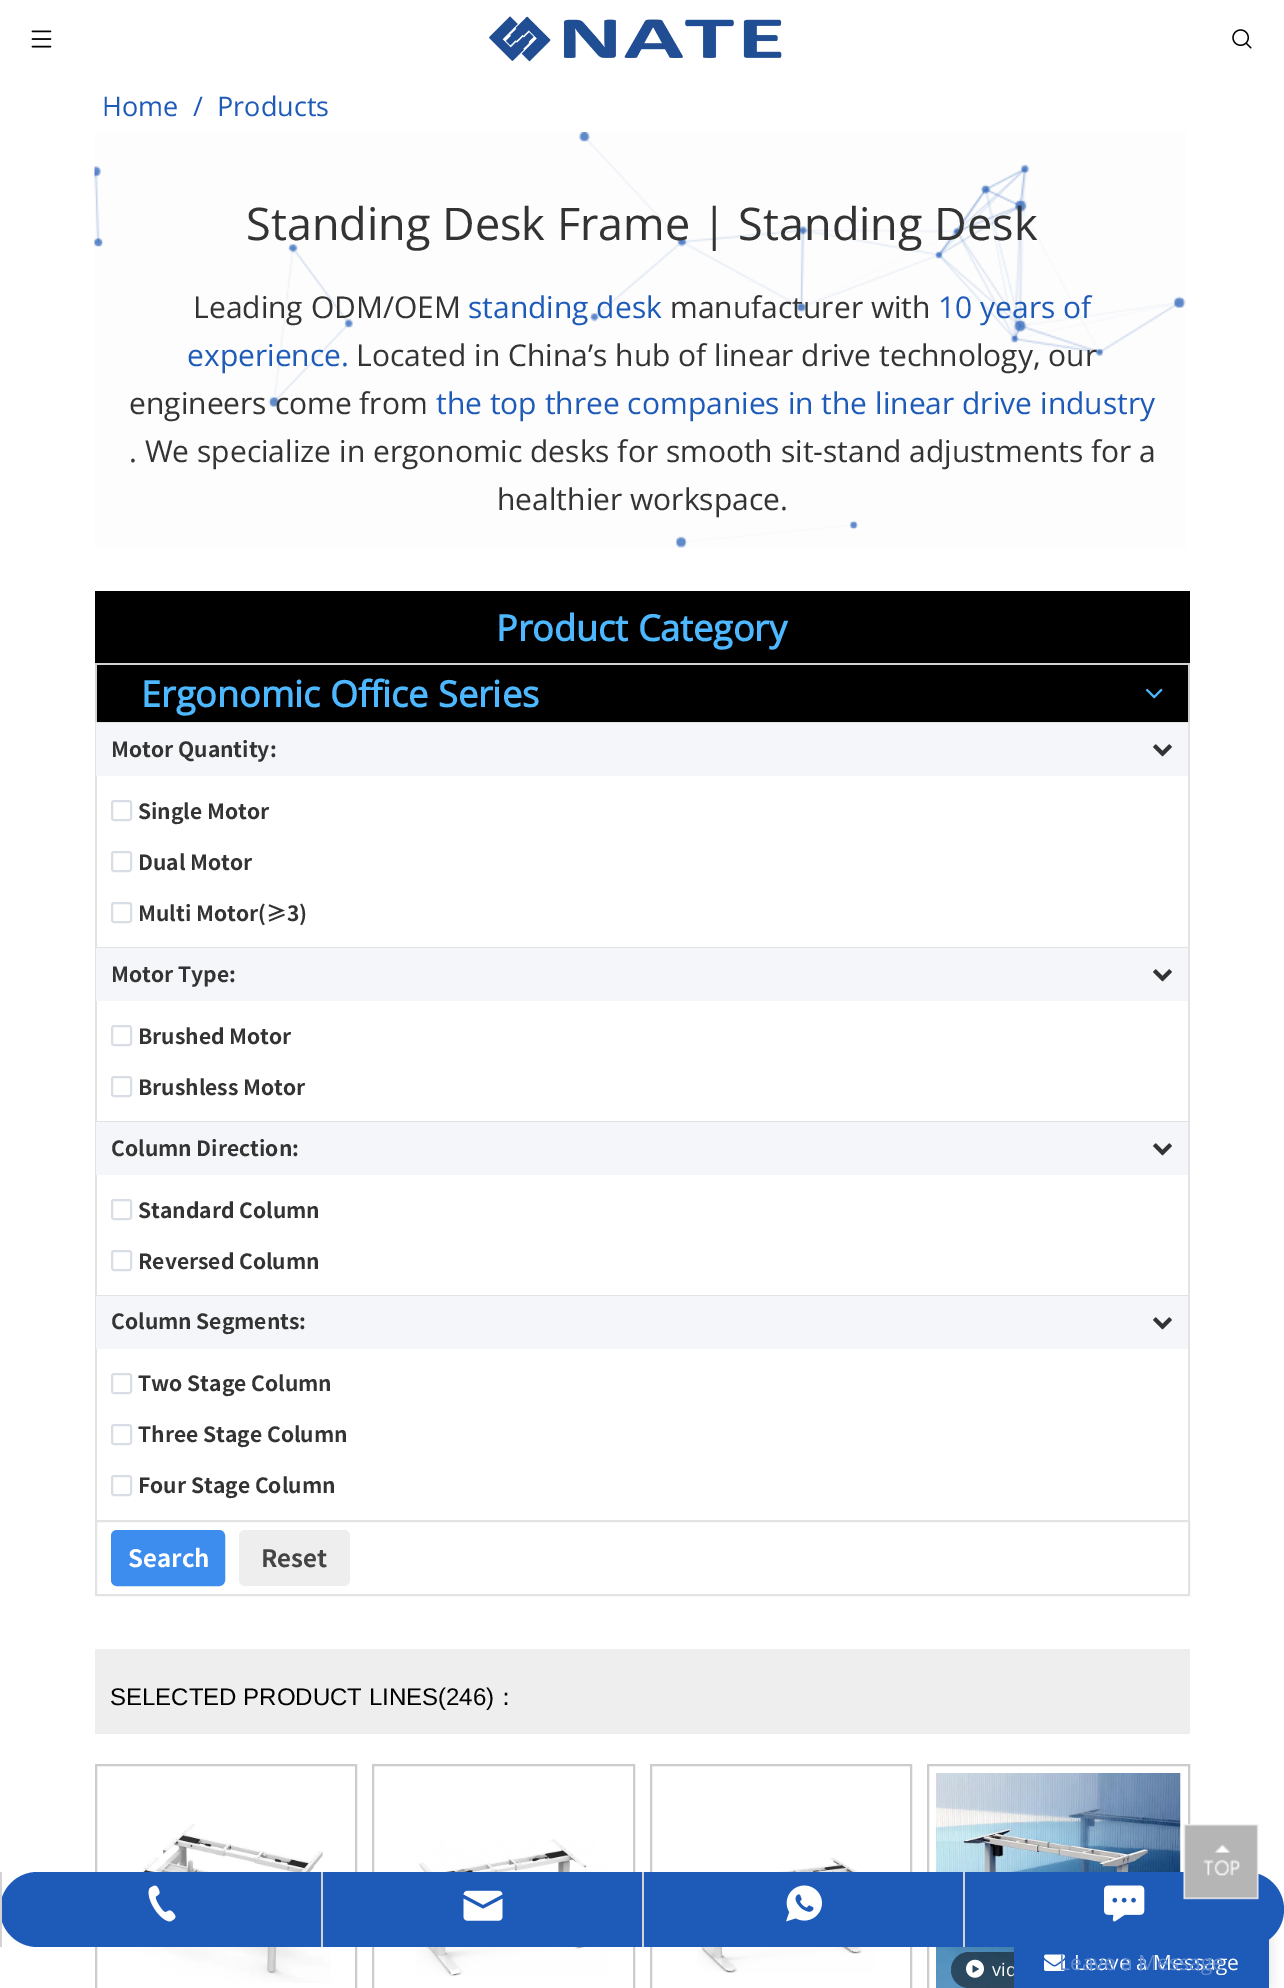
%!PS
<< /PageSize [1284 1988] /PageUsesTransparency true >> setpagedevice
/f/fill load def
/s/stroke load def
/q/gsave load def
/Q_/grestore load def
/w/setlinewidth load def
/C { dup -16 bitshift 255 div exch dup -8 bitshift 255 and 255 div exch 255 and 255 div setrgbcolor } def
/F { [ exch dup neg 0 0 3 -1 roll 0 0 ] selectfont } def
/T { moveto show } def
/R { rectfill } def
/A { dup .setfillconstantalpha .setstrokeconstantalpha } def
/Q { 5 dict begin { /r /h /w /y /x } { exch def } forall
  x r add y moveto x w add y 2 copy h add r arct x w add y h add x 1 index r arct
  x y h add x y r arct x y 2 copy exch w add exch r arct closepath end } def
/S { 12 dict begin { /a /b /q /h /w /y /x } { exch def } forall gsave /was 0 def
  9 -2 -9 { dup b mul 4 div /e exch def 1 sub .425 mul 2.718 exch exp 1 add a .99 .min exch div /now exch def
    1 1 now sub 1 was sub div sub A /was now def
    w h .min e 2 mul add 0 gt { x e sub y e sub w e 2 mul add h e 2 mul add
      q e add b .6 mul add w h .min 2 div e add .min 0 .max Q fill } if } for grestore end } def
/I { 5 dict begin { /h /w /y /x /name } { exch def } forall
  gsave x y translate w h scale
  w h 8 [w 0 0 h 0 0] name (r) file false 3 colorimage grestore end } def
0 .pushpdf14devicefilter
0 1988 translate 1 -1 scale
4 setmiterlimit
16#FFFFFF C
0 0 1284 1988 R
(1.rgb) 31 30 21 18 I
(2.rgb) 489 16 293 46 I
(3.rgb) 1232 29 20 20 I
/OpenSans-Regular 27 F
16#1E5AB8 C
(Home) 102 116 T
(/) 193 116 T
(Products) 217 116 T
(4.rgb) 94 132 1092 416 I
/OpenSans-Regular 45 F
16#333333 C
(Standing Desk Frame | Standing Desk) 246 240 T
/OpenSans-Regular 30 F
(Leading ODM/OEM) 193 318 T
16#1E5AB8 C
(standing desk) 468 318 T
16#333333 C
(manufacturer with) 670 318 T
16#1E5AB8 C
(10 years of) 938 318 T
(experience.) 187 366 T
16#333333 C
(Located in China’s hub of linear drive technology, our) 356 366 T
(engineers come from) 129 414 T
16#1E5AB8 C
(the top three companies in the linear drive industry) 436 414 T
16#333333 C
(. We specialize in ergonomic desks for smooth sit-stand adjustments for a) 129 462 T
(healthier workspace.) 497 510 T
16#000000 C
95 591 1095 72 R
/OpenSans-Bold 36 F
16#4DB8FF C
(Product Category) 496 641 T
16#000000 C
97 665 1091 57 R
16#D2D2D2 C
95 663 1095 2 R
1188 663 2 59 R
95 663 2 59 R
16#4DB8FF C
(Ergonomic Office Series) 141 707 T
(5.rgb) 1145 688 18 11 I
16#E3E3E3 C
95 722 1095 1 R
1188 722 2 225 R
95 722 2 225 R
16#F4F6F9 C
96 723 1092 53 R
/NotoSansSC-Bold 21 F
16#333333 C
(Motor Quantity:) 111 757 T
(6.rgb) 1153 744 19 13 I
16#D9DDE5 C
2 w
112 801 19 19 2 Q s
16#333333 C
(Single Motor) 138 819 T
16#D9DDE5 C
112 852 19 19 2 Q s
16#333333 C
(Dual Motor) 138 870 T
16#D9DDE5 C
112 903 19 19 2 Q s
16#333333 C
(Multi Motor\(≥3\)) 138 921 T
16#E3E3E3 C
95 947 1095 1 R
1188 947 2 174 R
95 947 2 174 R
16#F4F6F9 C
96 948 1092 53 R
16#333333 C
(Motor Type:) 111 982 T
(6.rgb) 1153 969 19 13 I
16#D9DDE5 C
112 1026 19 19 2 Q s
16#333333 C
(Brushed Motor) 138 1044 T
16#D9DDE5 C
112 1077 19 19 2 Q s
16#333333 C
(Brushless Motor) 138 1095 T
16#E3E3E3 C
95 1121 1095 1 R
1188 1121 2 174 R
95 1121 2 174 R
16#F4F6F9 C
96 1122 1092 53 R
16#333333 C
(Column Direction:) 111 1156 T
(6.rgb) 1153 1143 19 13 I
16#D9DDE5 C
112 1200 19 19 2 Q s
16#333333 C
(Standard Column) 138 1218 T
16#D9DDE5 C
112 1251 19 19 2 Q s
16#333333 C
(Reversed Column) 138 1269 T
16#E3E3E3 C
95 1295 1095 1 R
1188 1295 2 225 R
95 1295 2 225 R
16#F4F6F9 C
96 1296 1092 53 R
16#333333 C
(Column Segments:) 111 1329 T
(6.rgb) 1153 1317 19 13 I
16#D9DDE5 C
112 1374 19 19 2 Q s
16#333333 C
(Two Stage Column) 138 1391 T
16#D9DDE5 C
112 1425 19 19 2 Q s
16#333333 C
(Three Stage Column) 138 1442 T
16#D9DDE5 C
112 1476 19 19 2 Q s
16#333333 C
(Four Stage Column) 138 1493 T
16#E3E3E3 C
96 1521 1093 74 rectstroke
16#3D8DEE C
112 1531 112 54 5 Q q f Q_
s
/NotoSansSC-Bold 24 F
16#FFFFFF C
(Search) 128 1567 T
16#EEEEEE C
239 1530 111 56 6 Q f
16#444444 C
(Reset) 261 1567 T
16#EEEEEE C
95 1649 1095 85 R
/LiberationSans-Regular 24 F
16#000000 C
(SELECTED PRODUCT LINES\(246\)) 110 1705 T
/WenQuanYiZenHei-Medium 24 F
(：) 494 1705 T
16#CCCCCC C
96 1765 260 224 rectstroke
(7.rgb) 123 1824 208 159 I
373 1765 261 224 rectstroke
(8.rgb) 416 1839 191 138 I
651 1765 260 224 rectstroke
(9.rgb) 697 1858 177 115 I
928 1765 261 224 rectstroke
(10.rgb) 936 1773 245 215 I
0.5 A
16#000000 C
951 1952 101 36 18 Q f
1 A
(11.rgb) 966 1959 18 19 I
/OpenSans-Regular 18 F
16#FFFFFF C
(vid) 992 1976 T
16#444444 C
1014 1935 255 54 5 7.5 .18 S
16#1E5AB8 C
1014 1939 255 49 R
0 1872 1284 75 37.5 Q f
(12.rgb) 1183 1823 76 77 I
16#D3D3D3 C
0 1872 2 75 R
(13.rgb) 148 1885 28 37 I
321 1872 2 75 R
(14.rgb) 463 1890 40 31 I
642 1872 2 75 R
(15.rgb) 786 1885 36 37 I
963 1872 2 75 R
(16.rgb) 1104 1885 41 37 I
(17.rgb) 1044 1954 21 17 I
/OpenSans-Regular 21 F
16#FFFFFF C
(Leave a Message) 1074 1970 T
16#618BCD C
(Leave a Message) 1059 1970 T
.poppdf14devicefilter showpage
